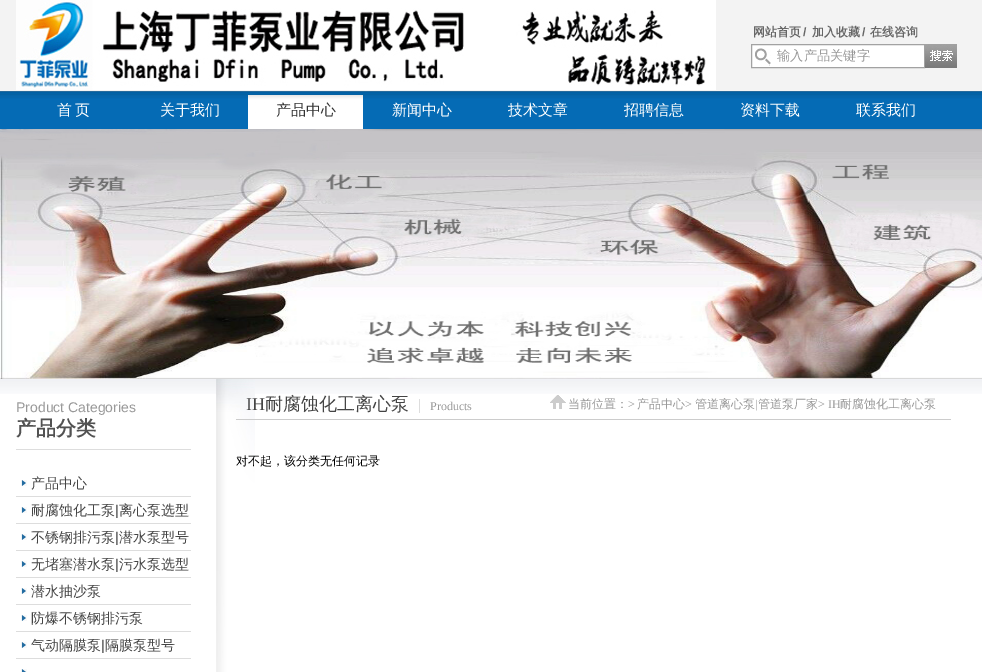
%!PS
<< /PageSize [982 672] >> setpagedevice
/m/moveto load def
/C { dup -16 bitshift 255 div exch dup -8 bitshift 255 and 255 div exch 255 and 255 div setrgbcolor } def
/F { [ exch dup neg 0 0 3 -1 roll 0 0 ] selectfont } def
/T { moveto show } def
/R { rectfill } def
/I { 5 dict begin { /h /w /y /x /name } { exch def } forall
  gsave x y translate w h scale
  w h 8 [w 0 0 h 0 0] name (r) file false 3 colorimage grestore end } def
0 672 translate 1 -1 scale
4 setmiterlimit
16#FFFFFF C
0 0 982 672 R
16#F3F3F3 C
0 0 982 91 R
(1.rgb) 16 0 700 90 I
/WenQuanYiZenHei-Bold 12 F
16#666666 C
(网站首页) 753 36 T
/LiberationSans-Bold 12 F
(/) 803 36 T
/WenQuanYiZenHei-Bold 12 F
(加入收藏) 812 36 T
/LiberationSans-Bold 12 F
(/) 862 36 T
/WenQuanYiZenHei-Bold 12 F
(在线咨询) 870 36 T
16#FFFFFF C
752 45 172 22 R
(2.rgb) 755 48 16 18 I
16#A2A2A2 C
751.5 44.5 173 23 rectstroke
/WenQuanYiZenHei-Medium 13.25 F
16#999999 C
(输入产品关键字) 777 60 T
(3.rgb) 925 44 32 24 I
(4.rgb) 0 91 982 38 I
/WenQuanYiZenHei-Medium 15 F
16#FFFFFF C
57 115 m -1 0 32 (首 页) widthshow
(关于我们) 160 115 T
(5.rgb) 248 95 115 34 I
16#333333 C
(产品中心) 276 115 T
16#FFFFFF C
(新闻中心) 392 115 T
(技术文章) 508 115 T
(招聘信息) 624 115 T
(资料下载) 740 115 T
(联系我们) 856 115 T
(6.rgb) 0 129 982 250 I
(7.rgb) 0 379 982 15 I
16#DDDDDD C
16 449 175 1 R
/LiberationSans-Regular 14 F
16#999999 C
(Product Categories) 16 412 T
/WenQuanYiZenHei-Bold 20 F
16#525252 C
(产品分类) 16 435 T
16#DDDDDD C
16 496 175 1 R
(8.rgb) 21 480 6 6 I
/WenQuanYiZenHei-Medium 14 F
16#444444 C
(产品中心) 31 488 T
16#DDDDDD C
16 523 175 1 R
(8.rgb) 21 507 6 6 I
16#444444 C
(耐腐蚀化工泵) 31 515 T
/LiberationSans-Regular 14 F
(|) 115 515 T
/WenQuanYiZenHei-Medium 14 F
(离心泵选型) 119 515 T
16#DDDDDD C
16 550 175 1 R
(8.rgb) 21 534 6 6 I
16#444444 C
(不锈钢排污泵) 31 542 T
/LiberationSans-Regular 14 F
(|) 115 542 T
/WenQuanYiZenHei-Medium 14 F
(潜水泵型号) 119 542 T
16#DDDDDD C
16 577 175 1 R
(8.rgb) 21 561 6 6 I
16#444444 C
(无堵塞潜水泵) 31 569 T
/LiberationSans-Regular 14 F
(|) 115 569 T
/WenQuanYiZenHei-Medium 14 F
(污水泵选型) 119 569 T
16#DDDDDD C
16 604 175 1 R
(8.rgb) 21 588 6 6 I
16#444444 C
(潜水抽沙泵) 31 596 T
16#DDDDDD C
16 631 175 1 R
(8.rgb) 21 615 6 6 I
16#444444 C
(防爆不锈钢排污泵) 31 623 T
16#DDDDDD C
16 658 175 1 R
(8.rgb) 21 642 6 6 I
16#444444 C
(气动隔膜泵) 31 650 T
/LiberationSans-Regular 14 F
(|) 101 650 T
/WenQuanYiZenHei-Medium 14 F
(隔膜泵型号) 105 650 T
(9.rgb) 21 669 6 3 I
(10.rgb) 216 379 39 293 I
16#CCCCCC C
236 419 715 1 R
/LiberationSerif-Regular 18 F
16#444444 C
(IH) 246 410 T
/WenQuanYiZenHei-Medium 18 F
(耐腐蚀化工离心泵) 265 410 T
/LiberationSerif-Regular 12 F
16#999999 C
(Products) 430 410 T
16#DDDDDD C
419 399 1 14 R
(11.rgb) 550 395 16 14 I
/WenQuanYiZenHei-Medium 12 F
16#999999 C
(当前位置：) 568 408 T
/LiberationSerif-Regular 12 F
(>) 628 408 T
/WenQuanYiZenHei-Medium 12 F
(产品中心) 637 408 T
/LiberationSerif-Regular 12 F
(>) 685 408 T
/WenQuanYiZenHei-Medium 12 F
(管道离心泵) 695 408 T
/LiberationSerif-Regular 12 F
(|) 755 408 T
/WenQuanYiZenHei-Medium 12 F
(管道泵厂家) 758 408 T
/LiberationSerif-Regular 12 F
(> IH) 818 408 T
/WenQuanYiZenHei-Medium 12 F
(耐腐蚀化工离心泵) 840 408 T
16#000000 C
(对不起，该分类无任何记录) 236 465 T
showpage
